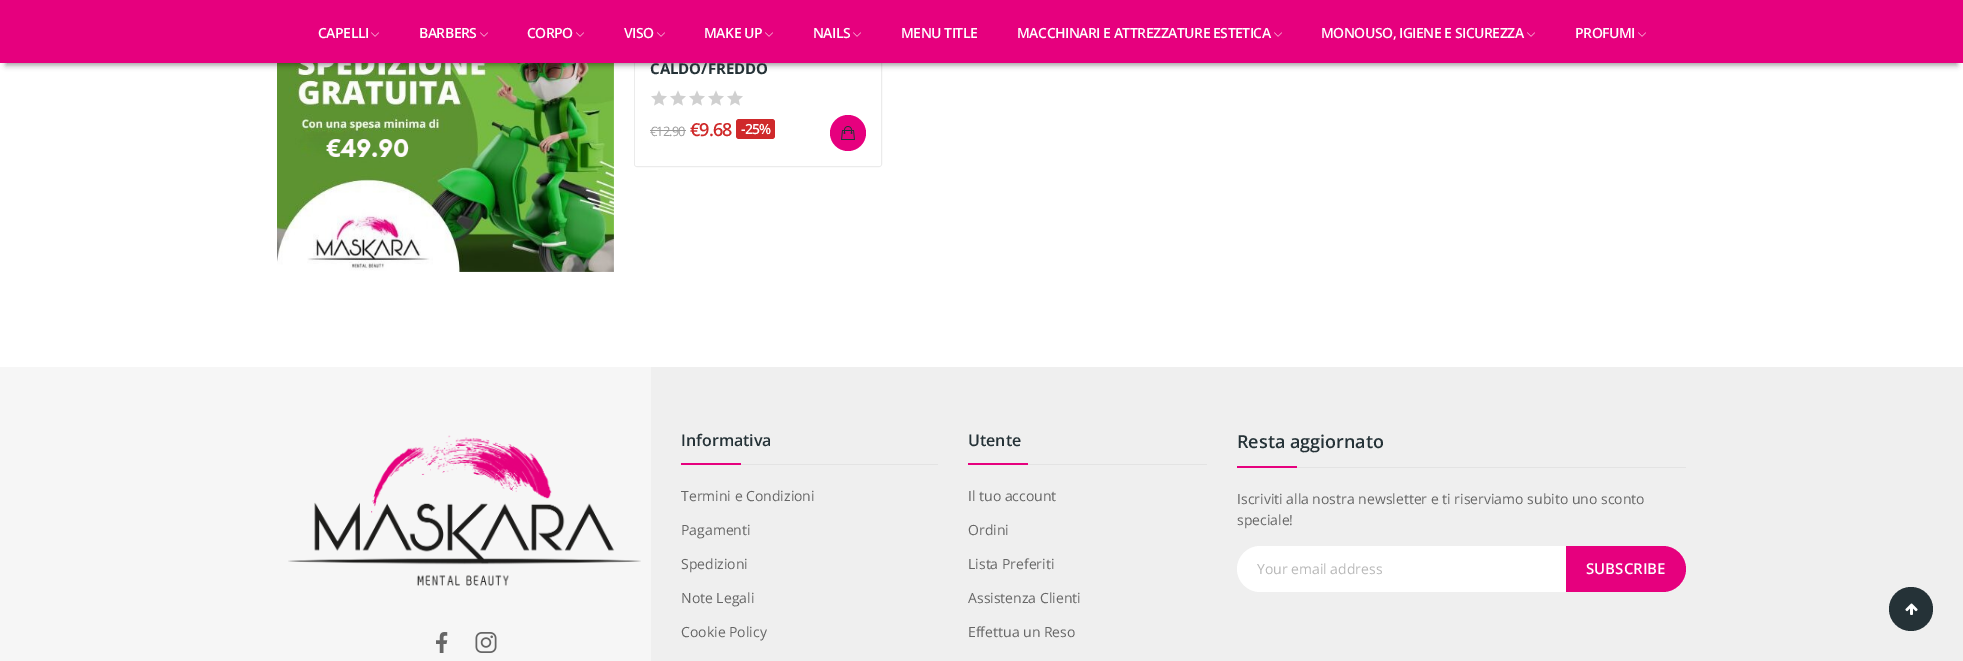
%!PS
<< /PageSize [1963 661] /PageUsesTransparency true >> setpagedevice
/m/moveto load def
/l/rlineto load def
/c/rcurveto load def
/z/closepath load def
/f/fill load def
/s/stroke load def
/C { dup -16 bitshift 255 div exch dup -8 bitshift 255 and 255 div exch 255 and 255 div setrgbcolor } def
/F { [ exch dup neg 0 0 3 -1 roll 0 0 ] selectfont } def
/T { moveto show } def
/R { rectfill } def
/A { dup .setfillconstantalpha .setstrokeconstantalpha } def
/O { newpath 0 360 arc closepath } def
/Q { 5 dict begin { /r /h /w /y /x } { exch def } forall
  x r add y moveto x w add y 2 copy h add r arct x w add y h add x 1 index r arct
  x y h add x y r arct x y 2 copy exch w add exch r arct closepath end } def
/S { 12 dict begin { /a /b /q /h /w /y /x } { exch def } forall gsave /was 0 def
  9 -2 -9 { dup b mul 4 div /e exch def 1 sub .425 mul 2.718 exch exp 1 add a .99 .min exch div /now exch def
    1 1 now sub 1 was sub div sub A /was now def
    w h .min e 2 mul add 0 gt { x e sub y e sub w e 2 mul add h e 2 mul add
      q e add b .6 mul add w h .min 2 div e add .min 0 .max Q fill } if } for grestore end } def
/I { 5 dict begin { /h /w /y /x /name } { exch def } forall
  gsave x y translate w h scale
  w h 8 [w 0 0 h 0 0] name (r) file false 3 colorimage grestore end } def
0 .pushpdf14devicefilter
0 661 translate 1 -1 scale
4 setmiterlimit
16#FFFFFF C
0 0 1963 661 R
(2.rgb) 277 63 337 209 I
16#EBEBEB C
634.5 -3.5 247 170 2.5 Q s
16#FFFFFF C
635 7 m 246 0 l 0 157 l 0 1 -1 2 -2 2 c -242 0 l -1 0 -2 -1 -2 -2 c z f
16#000000 C
6 14 1951 51 0 3 .4 S
16#E6007E C
0 0 1963 63 R
/OpenSans-SemiBold 14 F
16#FFFFFF C
318 38 m -.5 0 (CAPELLI) ashow
(1.rgb) 371 32 8 5 I
419 38 m -.5 0 (BARBERS) ashow
(1.rgb) 480 32 8 5 I
527 38 m -.5 0 (CORPO) ashow
(1.rgb) 576 32 8 5 I
624 38 m -.5 0 (VISO) ashow
(1.rgb) 657 32 8 5 I
704 38 m -.5 0 (MAKE UP) ashow
(1.rgb) 765 32 8 5 I
813 38 m -.5 0 (NAILS) ashow
(1.rgb) 853 32 8 5 I
901 38 m -.5 0 (MENU TITLE) ashow
1017 38 m -.5 0 (MACCHINARI E ATTREZZATURE ESTETICA) ashow
(1.rgb) 1274 32 8 5 I
1321 38 m -.5 0 (MONOUSO, IGIENE E SICUREZZA) ashow
(1.rgb) 1527 32 8 5 I
1575 38 m -.5 0 (PROFUMI) ashow
(1.rgb) 1638 32 8 5 I
/OpenSans-Bold 15 F
16#253237 C
(CALDO/FREDDO) 650 74 T
(3.rgb) 651 90 92 16 I
/OpenSans-Regular 13 F
16#9B9B9B C
650 136 m -1 0 (€12.90) ashow
650 130 36 1 R
/OpenSans-SemiBold 18 F
16#CF2929 C
690 136 m -1 0 (€9.68) ashow
16#CF292B C
736 119 39 20 3 Q f
/OpenSans-SemiBold 14 F
16#FFFFFF C
741 134 m -1 0 (-25%) ashow
16#E6007E C
848 133 18 O f
(4.rgb) 841 126 14 14 I
16#EFEFEF C
651 367 1312 294 R
16#F6F6F6 C
0 367 651 294 R
(5.rgb) 288 435 353 151 I
(6.rgb) 436 632 12 21 I
(7.rgb) 475 632 22 21 I
16#E3E3E3 C
741 464 197 1 R
/OpenSans-SemiBold 16 F
16#253237 C
(Informativa) 681 446 T
16#E6007E C
681 463 60 2 R
/OpenSans-Regular 14 F
16#666666 C
(Termini e Condizioni) 681 501 T
(Pagamenti) 681 535 T
(Spedizioni) 681 569 T
(Note Legali) 681 603 T
(Cookie Policy) 681 637 T
16#E3E3E3 C
1028 464 179 1 R
/OpenSans-SemiBold 16 F
16#253237 C
(Utente) 968 446 T
16#E6007E C
968 463 60 2 R
/OpenSans-Regular 14 F
16#666666 C
(Il tuo account) 968 501 T
(Ordini) 968 535 T
(Lista Preferiti) 968 569 T
(Assistenza Clienti) 968 603 T
(Effettua un Reso) 968 637 T
16#E3E3E3 C
1297 467 389 1 R
/OpenSans-SemiBold 18 F
16#253237 C
(Resta aggiornato) 1237 448 T
16#E6007E C
1237 466 60 2 R
/OpenSans-Regular 14 F
16#666666 C
(Iscriviti alla nostra newsletter e ti riserviamo subito uno sconto) 1237 504 T
(speciale!) 1237 525 T
16#FFFFFF C
1260 546 m 306 0 l 0 46 l -306 0 l -12.5 0 -23 -10.5 -23 -23 c 0 -12.5 10.5 -23 23 -23 c z f
16#B7B7B7 C
(Your email address) 1257 574 T
16#E6007E C
1566 546 m 97 0 l 12.5 0 23 10.5 23 23 c 0 12.5 -10.5 23 -23 23 c -97 0 l z f
/OpenSans-SemiBold 15 F
16#FFFFFF C
(SUBSCRIBE) 1586 574 T
16#253237 C
1911 609 22 O f
(8.rgb) 1905 603 13 12 I
.poppdf14devicefilter showpage
